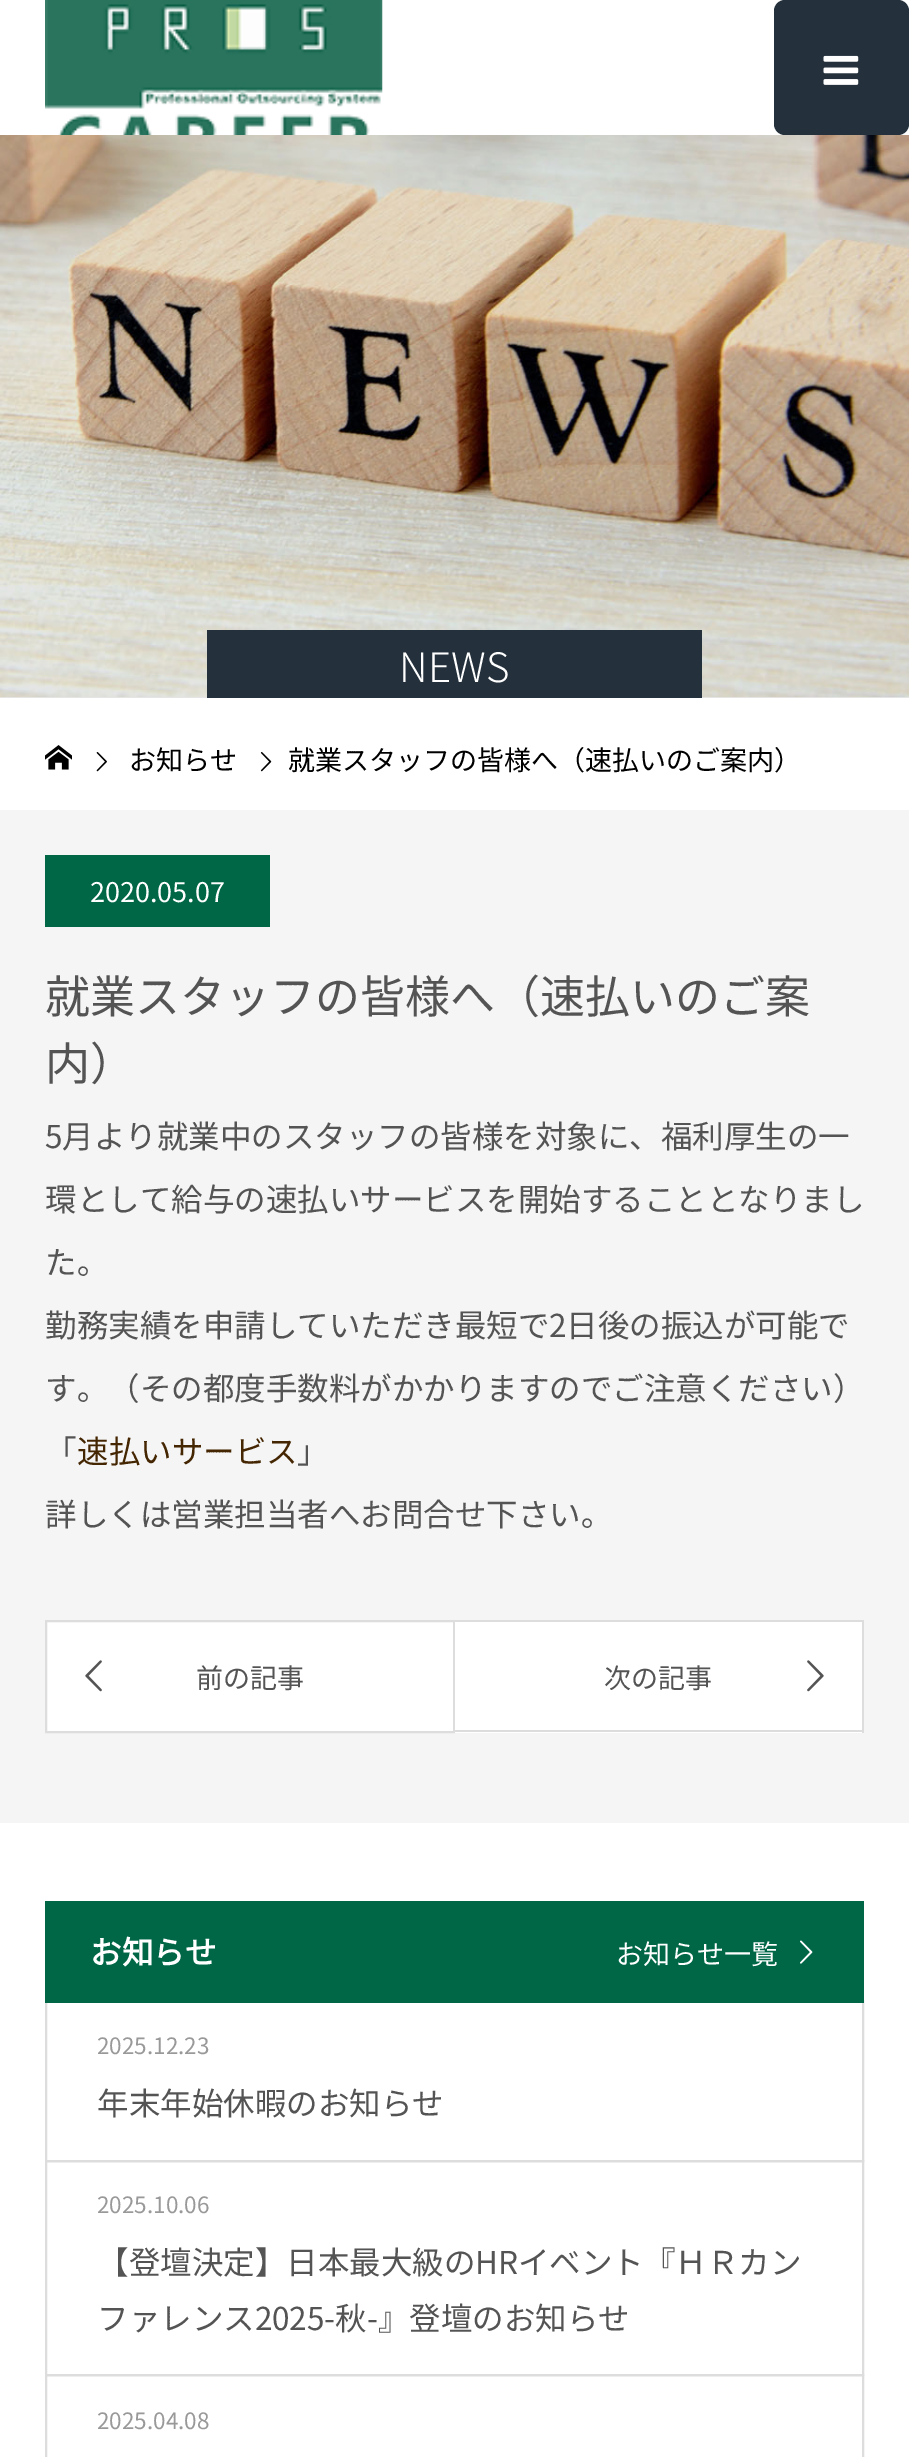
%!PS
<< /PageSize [909 2457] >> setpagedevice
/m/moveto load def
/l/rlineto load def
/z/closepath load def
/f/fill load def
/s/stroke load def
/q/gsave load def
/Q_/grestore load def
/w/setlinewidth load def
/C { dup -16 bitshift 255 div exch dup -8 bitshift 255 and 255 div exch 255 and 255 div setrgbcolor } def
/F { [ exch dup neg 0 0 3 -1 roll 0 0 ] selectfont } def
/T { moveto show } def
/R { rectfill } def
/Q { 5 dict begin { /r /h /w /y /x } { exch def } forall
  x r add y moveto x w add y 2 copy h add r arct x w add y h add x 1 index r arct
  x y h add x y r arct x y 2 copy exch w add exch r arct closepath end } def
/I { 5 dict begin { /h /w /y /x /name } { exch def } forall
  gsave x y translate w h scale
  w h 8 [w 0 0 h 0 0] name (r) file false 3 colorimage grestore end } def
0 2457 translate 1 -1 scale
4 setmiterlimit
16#FFFFFF C
0 0 909 2457 R
16#E6E6E6 C
0 697 909 1 R
(1.rgb) 45 0 338 135 I
16#24313C C
774 0 135 135 11 Q f
(2.rgb) 823 55 36 30 I
(3.rgb) 0 135 909 563 I
207 630 495 68 R
/NotoSansJP-Light 40.5 F
16#FFFFFF C
(NEWS) 399 682 T
(4.rgb) 45 745 27 25 I
(5.rgb) 96 752 11 20 I
/NotoSansJP-Regular 27 F
16#000000 C
(お知らせ) 129 770 T
(6.rgb) 260 752 12 20 I
(就業スタッフの皆様へ（速払いのご案内）) 288 770 T
16#F5F5F5 C
0 810 909 1013 R
16#006746 C
45 855 225 72 R
16#FFFFFF C
(2020.05.07) 90 902 T
/NotoSansJP-Regular 45 F
16#545454 C
(就業スタッフの皆様へ（速払いのご案) 45 1013 T
(内）) 45 1080 T
/NotoSansJP-Regular 31.5 F
(5月より就業中のスタッフの皆様を対象に、福利厚生の一) 45 1148 T
(環として給与の速払いサービスを開始することとなりまし) 45 1211 T
(た。) 45 1274 T
(勤務実績を申請していただき最短で2日後の振込が可能で) 45 1337 T
(す。（その都度手数料がかかりますのでご注意ください）) 45 1400 T
(「) 45 1463 T
16#442602 C
(速払いサービス) 77 1463 T
16#545454 C
(」) 297 1463 T
(詳しくは営業担当者へお問合せ下さい。) 45 1526 T
16#FFFFFF C
46 1621 m 408 0 l 0 111 l -408 0 l z q f Q_
16#DDDDDD C
2 w
s
(7.rgb) 85 1660 17 32 I
/NotoSansJP-Regular 27 F
16#545454 C
(前の記事) 196 1688 T
16#FFFFFF C
455 1622 407 111 R
16#DDDDDD C
455 1620 409 2 R
862 1620 2 113 R
455 1730 409 2 R
16#545454 C
(次の記事) 604 1688 T
(8.rgb) 807 1660 17 32 I
16#DDDDDD C
46 2001 817 160 rectstroke
16#006746 C
45 1901 819 102 R
/NotoSansJP-Bold 31.5 F
16#FFFFFF C
(お知らせ) 90 1964 T
/NotoSansJP-Regular 27 F
(お知らせ一覧) 616 1964 T
(9.rgb) 800 1940 13 24 I
/NotoSansJP-Regular 22.5 F
16#999999 C
(2025.12.23) 97 2054 T
/NotoSansJP-Regular 31.5 F
16#545454 C
(年末年始休暇のお知らせ) 97 2115 T
16#DDDDDD C
46 2161 817 214 rectstroke
/NotoSansJP-Regular 22.5 F
16#999999 C
(2025.10.06) 97 2213 T
/NotoSansJP-Regular 31.5 F
16#545454 C
(【登壇決定】日本最大級のHRイベント『ＨＲカン) 97 2274 T
(ファレンス2025-秋-』登壇のお知らせ) 97 2330 T
16#DDDDDD C
46 2375 817 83 rectstroke
/NotoSansJP-Regular 22.5 F
16#999999 C
(2025.04.08) 97 2429 T
showpage
